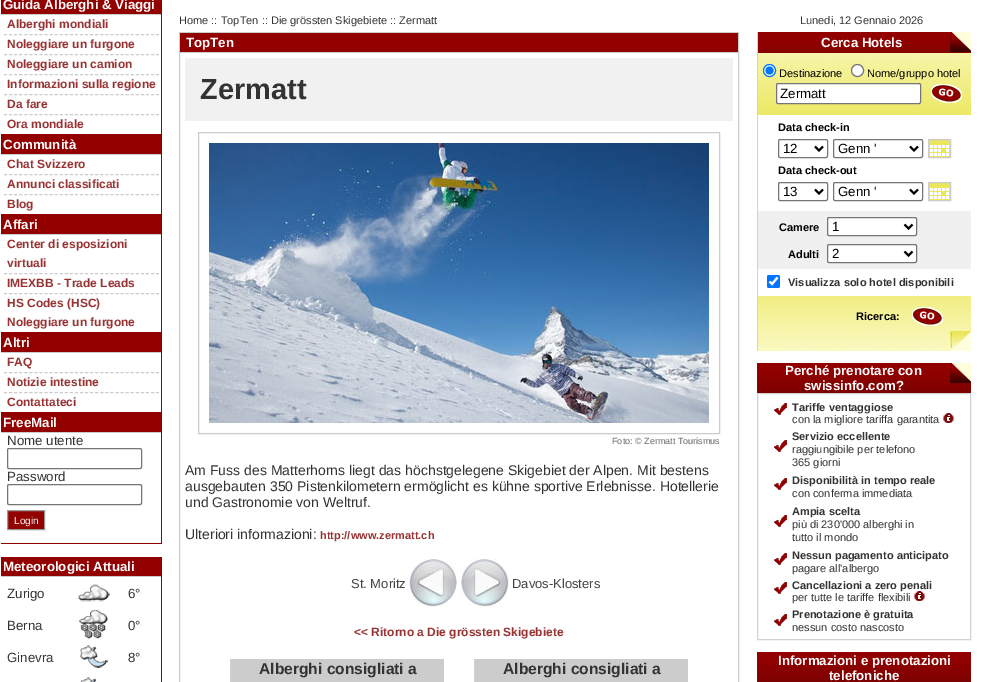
%!PS
<< /PageSize [981 682] >> setpagedevice
/m/moveto load def
/l/rlineto load def
/z/closepath load def
/f/fill load def
/s/stroke load def
/q/gsave load def
/Q_/grestore load def
/w/setlinewidth load def
/C { dup -16 bitshift 255 div exch dup -8 bitshift 255 and 255 div exch 255 and 255 div setrgbcolor } def
/F { [ exch dup neg 0 0 3 -1 roll 0 0 ] selectfont } def
/T { moveto show } def
/R { rectfill } def
/O { newpath 0 360 arc closepath } def
/Q { 5 dict begin { /r /h /w /y /x } { exch def } forall
  x r add y moveto x w add y 2 copy h add r arct x w add y h add x 1 index r arct
  x y h add x y r arct x y 2 copy exch w add exch r arct closepath end } def
/I { 5 dict begin { /h /w /y /x /name } { exch def } forall
  gsave x y translate w h scale
  w h 8 [w 0 0 h 0 0] name (r) file false 3 colorimage grestore end } def
0 682 translate 1 -1 scale
4 setmiterlimit
16#FFFFFF C
0 0 981 682 R
16#920100 C
161 0 1 544 R
1 134 161 1 R
1 0 160 14 R
16#CCCCCC C
1 14 160 1 R
/LiberationSans-Bold 13.3 F
16#FFFFFF C
(Guida Alberghi & Viaggi) 3 9 T
16#CCCCCC C
[3 2.07] 0 setdash
4 34.5 m 155 0 l s
/LiberationSans-Bold 12 F
16#993333 C
(Alberghi mondiali) 7 28 T
16#CCCCCC C
4 54.5 m 155 0 l s
16#993333 C
(Noleggiare un furgone) 7 48 T
16#CCCCCC C
4 74.5 m 155 0 l s
16#993333 C
(Noleggiare un camion) 7 68 T
16#CCCCCC C
4 94.5 m 155 0 l s
16#993333 C
(Informazioni sulla regione) 7 88 T
16#CCCCCC C
4 114.5 m 155 0 l s
16#993333 C
(Da fare) 7 108 T
(Ora mondiale) 7 128 T
16#920100 C
1 214 161 1 R
1 135 160 19 R
16#CCCCCC C
1 154 160 1 R
/LiberationSans-Bold 13.3 F
16#FFFFFF C
(Communità) 3 149 T
16#CCCCCC C
4 174.5 m 155 0 l s
/LiberationSans-Bold 12 F
16#993333 C
(Chat Svizzero) 7 168 T
16#CCCCCC C
4 194.5 m 155 0 l s
16#993333 C
(Annunci classificati) 7 188 T
(Blog) 7 208 T
16#920100 C
1 332 161 1 R
1 215 160 19 R
16#CCCCCC C
1 234 160 1 R
/LiberationSans-Bold 13.3 F
16#FFFFFF C
(Affari) 3 229 T
16#CCCCCC C
4 273.5 m 155 0 l s
/LiberationSans-Bold 12 F
16#993333 C
(Center di esposizioni) 7 248 T
(virtuali) 7 267 T
16#CCCCCC C
4 293.5 m 155 0 l s
16#993333 C
(IMEXBB - Trade Leads) 7 287 T
(HS Codes \(HSC\)) 7 307 T
(Noleggiare un furgone) 7 326 T
16#920100 C
1 412 161 1 R
1 333 160 19 R
16#CCCCCC C
1 352 160 1 R
/LiberationSans-Bold 13.3 F
16#FFFFFF C
(Altri) 3 347 T
16#CCCCCC C
4 372.5 m 155 0 l s
/LiberationSans-Bold 12 F
16#993333 C
(FAQ) 7 366 T
16#CCCCCC C
4 392.5 m 155 0 l s
16#993333 C
(Notizie intestine) 7 386 T
(Contattateci) 7 406 T
16#920100 C
1 543 161 1 R
1 413 160 19 R
16#CCCCCC C
1 432 160 1 R
/LiberationSans-Bold 13.3 F
16#FFFFFF C
(FreeMail) 3 427 T
/LiberationSans-Regular 13.3 F
16#333333 C
(Nome utente) 7 445 T
16#767676 C
[] 0 setdash
7.5 448.5 134 20 1.5 Q s
16#333333 C
(Password) 7 481 T
16#767676 C
7.5 484.5 134 20 1.5 Q s
16#920100 C
7.5 510.5 m 37 0 l 0 19 l -37 0 l z q f Q_
16#999999 C
s
/LiberationSans-Regular 10 F
16#FFFFFF C
(Login) 14 524 T
16#920100 C
161 557 1 125 R
1 557 160 19 R
16#CCCCCC C
1 576 160 1 R
/LiberationSans-Bold 13.3 F
16#FFFFFF C
(Meteorologici Attuali) 3 571 T
/LiberationSans-Regular 13.3 F
16#333333 C
(Zurigo) 7 598 T
(1.rgb) 78 584 32 18 I
(6°) 128 598 T
(Berna) 7 630 T
(2.rgb) 79 610 29 29 I
(0°) 128 630 T
(Ginevra) 7 662 T
(3.rgb) 80 645 28 23 I
(8°) 128 662 T
(4.rgb) 80 677 17 5 I
/LiberationSans-Regular 11 F
(Home :: TopTen :: Die grössten Skigebiete :: Zermatt) 179 24 T
16#CCCCCC C
179.5 32.5 559 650 rectstroke
16#920100 C
180 33 558 19 R
16#CCCCCC C
180 52 558 1 R
/LiberationSans-Bold 13.3 F
16#FFFFFF C
(TopTen) 186 47 T
16#F1F1F1 C
185 58 548 63 R
/LiberationSans-Bold 29 F
16#333333 C
(Zermatt) 200 99 T
16#CCCCCC C
198.5 132.5 521 301 rectstroke
(5.rgb) 209 143 500 280 I
/LiberationSans-Regular 9 F
16#6B6A6A C
(Foto: © Zermatt Tourismus) 612 444 T
/LiberationSans-Regular 14 F
16#333333 C
(Am Fuss des Matterhorns liegt das höchstgelegene Skigebiet der Alpen. Mit bestens) 185 475 T
(ausgebauten 350 Pistenkilometern ermöglicht es kühne sportive Erlebnisse. Hotellerie) 185 491 T
(und Gastronomie von Weltruf.) 185 507 T
(Ulteriori informazioni:) 185 539 T
/LiberationSans-Bold 11 F
16#993333 C
(http://www.zermatt.ch) 320 539 T
/LiberationSans-Regular 13 F
16#444444 C
(St. Moritz) 351 588 T
(6.rgb) 408 559 49 48 I
(7.rgb) 460 558 49 49 I
(Davos-Klosters) 512 588 T
/LiberationSans-Bold 12 F
16#993333 C
(<< Ritorno a Die grössten Skigebiete) 354 636 T
16#D2D2D2 C
230 659 1 23 R
16#CCCCCC C
231 659 213 23 R
/LiberationSans-Bold 15.6 F
16#333333 C
(Alberghi consigliati a) 259 674 T
16#D2D2D2 C
474 659 1 23 R
16#CCCCCC C
475 659 213 23 R
16#333333 C
(Alberghi consigliati a) 503 674 T
/LiberationSans-Regular 11 F
(Lunedi, 12 Gennaio 2026) 800 24 T
16#D2D2D2 C
757 32 1 319 R
(8.rgb) 758 32 192 21 I
/LiberationSans-Bold 13.3 F
16#FFFFFF C
(Cerca Hotels) 821 47 T
(9.rgb) 950 52 21 1 I
(10.rgb) 950 32 21 20 I
(11.rgb) 758 53 213 62 I
769.5 70.5 6 O q f Q_
16#0075FF C
s
769.5 70.5 4 O f
/LiberationSans-Regular 11 F
16#000000 C
(Destinazione) 779 77 T
16#FFFFFF C
857.5 70.5 6 O q f Q_
16#767676 C
s
16#000000 C
(Nome/gruppo hotel) 867 77 T
16#FFFFFF C
776.5 83.5 144 20 1.5 Q q f Q_
16#767676 C
s
/LiberationSans-Regular 13.3 F
16#000000 C
(Zermatt) 780 98 T
(12.rgb) 931 84 31 19 I
/LiberationSans-Bold 11 F
(Data check-in) 778 131 T
16#767676 C
778.5 139.5 49 18 1.5 Q s
16#000000 C
2 w
815 146.5 m 4 4 l 4 -4 l s
/LiberationSans-Regular 13.3 F
(12) 783 153 T
16#767676 C
1 w
833.5 139.5 89 18 1.5 Q s
16#000000 C
2 w
910 146.5 m 4 4 l 4 -4 l s
(Genn ') 838 153 T
16#EAE75D C
928.5 139.5 m 22 0 l 0 18 l -22 0 l z q f Q_
16#CCCCCC C
1 w
s
(13.rgb) 930 145 19 11 I
/LiberationSans-Bold 11 F
16#000000 C
(Data check-out) 778 174 T
16#767676 C
778.5 182.5 49 18 1.5 Q s
16#000000 C
2 w
815 189.5 m 4 4 l 4 -4 l s
/LiberationSans-Regular 13.3 F
(13) 783 196 T
16#767676 C
1 w
833.5 182.5 89 18 1.5 Q s
16#000000 C
2 w
910 189.5 m 4 4 l 4 -4 l s
(Genn ') 838 196 T
16#EAE75D C
928.5 182.5 m 22 0 l 0 18 l -22 0 l z q f Q_
16#CCCCCC C
1 w
s
(13.rgb) 930 188 19 11 I
16#F0F0F0 C
758 211 213 58 R
/LiberationSans-Bold 11 F
16#000000 C
(Camere) 779 231 T
16#FFFFFF C
827.5 217.5 89 18 1.5 Q q f Q_
16#767676 C
s
16#000000 C
2 w
904.5 224.5 m 4 4 l 4 -4 l s
/LiberationSans-Regular 13.3 F
(1) 832 231 T
/LiberationSans-Bold 11 F
(Adulti) 788 258 T
16#FFFFFF C
827.5 244.5 89 18 1.5 Q q f Q_
16#767676 C
1 w
s
16#000000 C
2 w
904.5 251.5 m 4 4 l 4 -4 l s
/LiberationSans-Regular 13.3 F
(2) 832 258 T
16#0075FF C
767 275 13 13 2 Q f
16#FFFFFF C
2.1 w
769.5 281.5 m 2.5 2.5 l 5.5 -6.5 l s
/LiberationSans-Bold 11 F
16#333333 C
(Visualizza solo hotel disponibili) 788 286 T
(14.rgb) 758 296 192 55 I
16#000000 C
(Ricerca:) 856 320 T
(15.rgb) 912 307 31 19 I
(16.rgb) 950 296 21 35 I
(17.rgb) 950 331 21 20 I
16#920100 C
757 363 1 30 R
(18.rgb) 758 363 192 30 I
/LiberationSans-Bold 13.3 F
16#FFFFFF C
(Perché prenotare con) 785 375 T
(swissinfo.com?) 804 390 T
(19.rgb) 950 383 21 10 I
(10.rgb) 950 363 21 20 I
16#D2D2D2 C
1 w
757.5 393.5 213 246 rectstroke
(20.rgb) 774 403 13 12 I
/LiberationSans-Bold 11 F
16#333333 C
(Tariffe ventaggiose) 792 411 T
/LiberationSans-Regular 11 F
(con la migliore tariffa garantita) 792 423 T
(21.rgb) 943 413 11 10 I
(20.rgb) 774 440 13 12 I
/LiberationSans-Bold 11 F
(Servizio eccellente) 792 440 T
/LiberationSans-Regular 11 F
(raggiungibile per telefono) 792 453 T
(365 giorni) 792 466 T
(20.rgb) 774 478 13 12 I
/LiberationSans-Bold 11 F
(Disponibilità in tempo reale) 792 484 T
/LiberationSans-Regular 11 F
(con conferma immediata) 792 497 T
(20.rgb) 774 515 13 12 I
/LiberationSans-Bold 11 F
(Ampia scelta) 792 515 T
/LiberationSans-Regular 11 F
(più di 230'000 alberghi in) 792 528 T
(tutto il mondo) 792 541 T
(20.rgb) 774 553 13 12 I
/LiberationSans-Bold 11 F
(Nessun pagamento anticipato) 792 559 T
/LiberationSans-Regular 11 F
(pagare all'albergo) 792 572 T
(20.rgb) 774 582 13 12 I
/LiberationSans-Bold 11 F
(Cancellazioni a zero penali) 792 589 T
/LiberationSans-Regular 11 F
(per tutte le tariffe flexibili) 792 601 T
(21.rgb) 914 591 11 10 I
(20.rgb) 774 614 13 12 I
/LiberationSans-Bold 11 F
(Prenotazione è gratuita) 792 618 T
/LiberationSans-Regular 11 F
(nessun costo nascosto) 792 631 T
16#920100 C
757 652 1 30 R
(22.rgb) 758 652 213 30 I
/LiberationSans-Bold 13.3 F
16#FFFFFF C
(Informazioni e prenotazioni) 778 665 T
(telefoniche) 829 680 T
showpage
